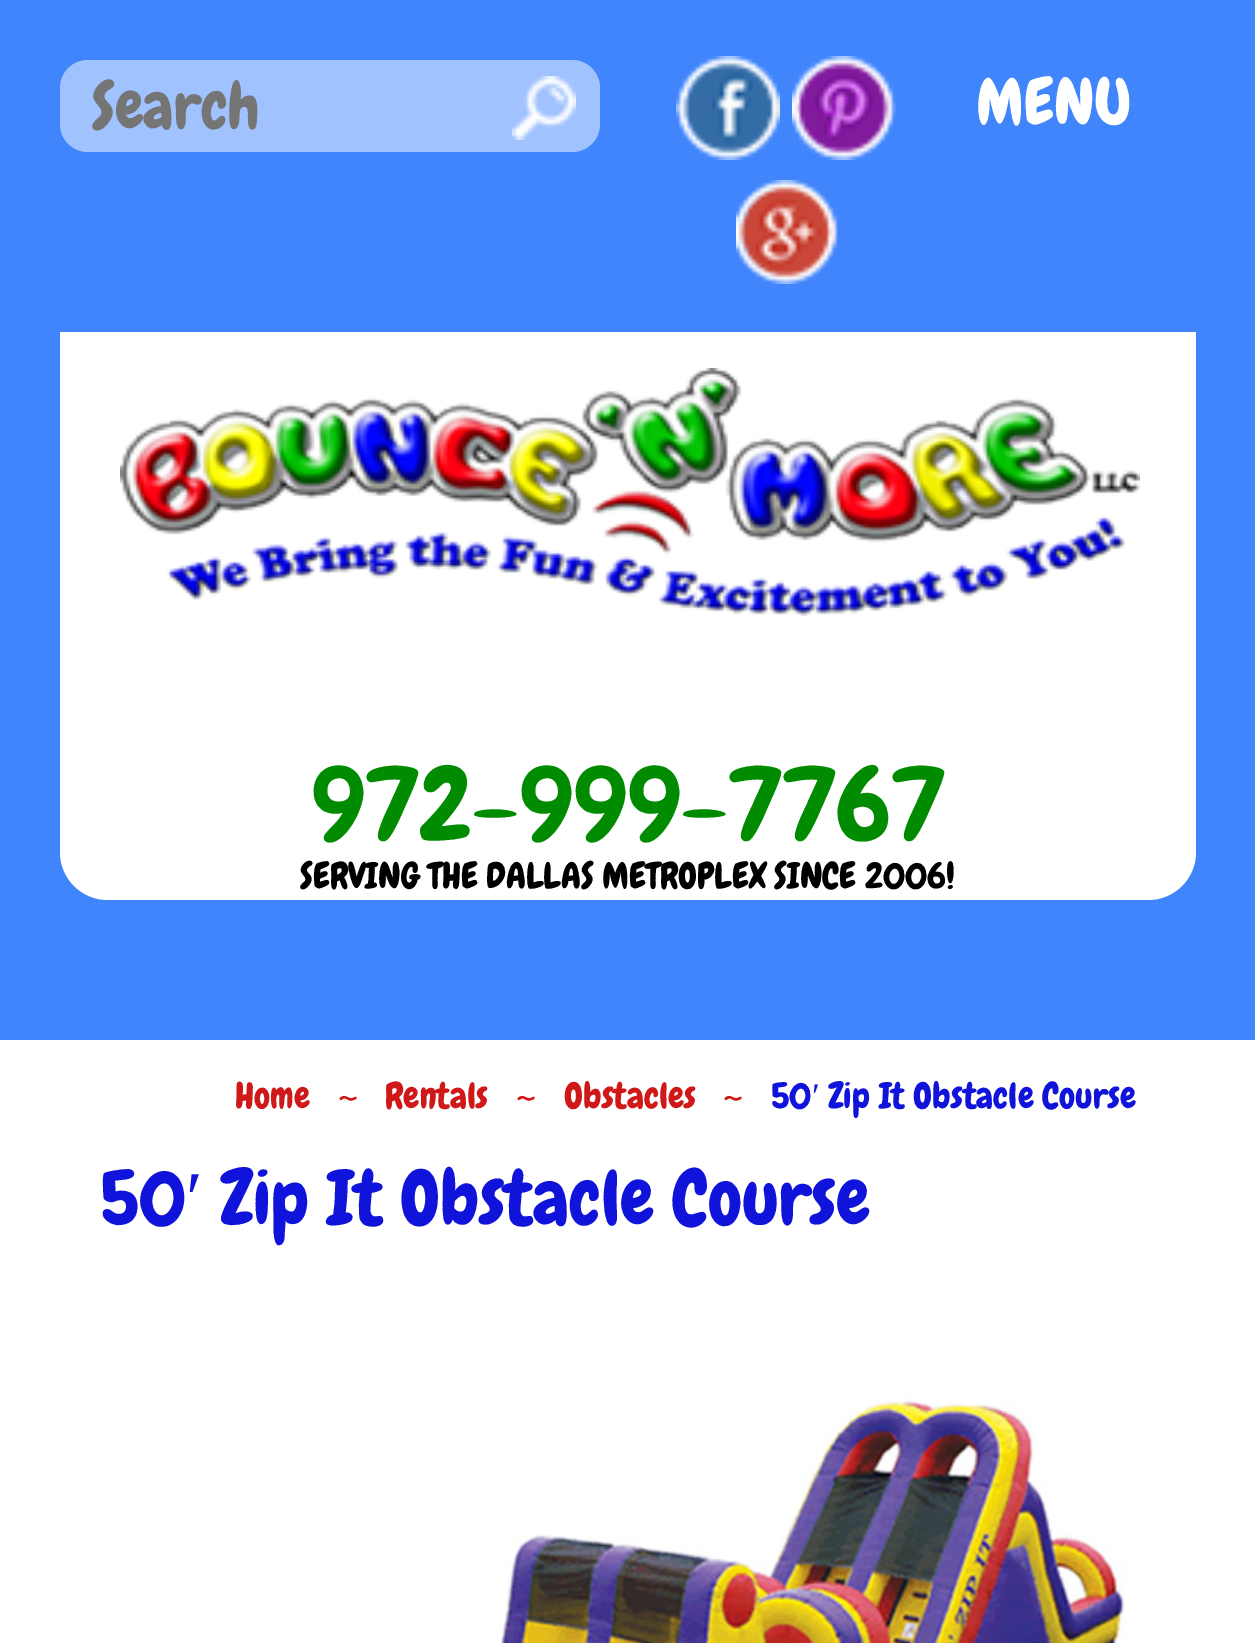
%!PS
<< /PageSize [1255 1643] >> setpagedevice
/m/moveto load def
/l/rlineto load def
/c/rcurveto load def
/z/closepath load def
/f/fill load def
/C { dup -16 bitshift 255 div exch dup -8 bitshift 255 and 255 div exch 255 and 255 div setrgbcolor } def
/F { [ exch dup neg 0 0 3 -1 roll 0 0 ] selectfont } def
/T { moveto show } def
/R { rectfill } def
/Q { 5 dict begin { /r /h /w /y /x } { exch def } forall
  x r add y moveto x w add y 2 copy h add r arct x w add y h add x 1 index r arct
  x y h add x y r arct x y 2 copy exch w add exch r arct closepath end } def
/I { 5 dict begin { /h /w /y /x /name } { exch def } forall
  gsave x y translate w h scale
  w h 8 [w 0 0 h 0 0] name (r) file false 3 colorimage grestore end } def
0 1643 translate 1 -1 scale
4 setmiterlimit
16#4185FC C
0 0 1255 1643 R
16#FFFFFF C
84 292 m 1088 0 l 13.5 0 24 10.5 24 24 c 0 536 l 0 26.5 -21.5 48 -48 48 c -1040 0 l -26.5 0 -48 -21.5 -48 -48 c 0 -536 l 0 -13.5 10.5 -24 24 -24 c z f
16#4185FC C
60 292 1136 40 R
16#A0C2FE C
60 60 540 92 28 Q f
(1.rgb) 512 76 64 64 I
/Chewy-Regular 64 F
16#757575 C
(Search) 92 128 T
(2.rgb) 676 56 104 104 I
(3.rgb) 792 56 104 104 I
(4.rgb) 736 180 102 104 I
16#FFFFFF C
(MENU) 976 124 T
(5.rgb) 120 368 1020 248 I
/Chewy-Regular 104 F
16#008B00 C
(972-999-7767) 311 840 T
/Chewy-Regular 36 F
16#000000 C
(SERVING THE DALLAS METROPLEX SINCE 2006!) 300 888 T
16#FFFFFF C
0 1040 1255 603 R
16#D01818 C
(Home) 235 1108 T
(~) 339 1108 T
(Rentals) 385 1108 T
(~) 517 1108 T
(Obstacles) 564 1108 T
16#1014DA C
(50) 771 1108 T
/LiberationSerif-Regular 36 F
(′) 812 1108 T
/Chewy-Regular 36 F
(Zip It Obstacle Course) 828 1108 T
16#D01818 C
(~) 724 1108 T
/Chewy-Regular 76 F
16#1014DA C
(50) 100 1224 T
/LiberationSerif-Regular 76 F
(′) 186 1224 T
/Chewy-Regular 76 F
(Zip It Obstacle Course) 220 1224 T
(6.rgb) 501 1396 624 247 I
showpage
